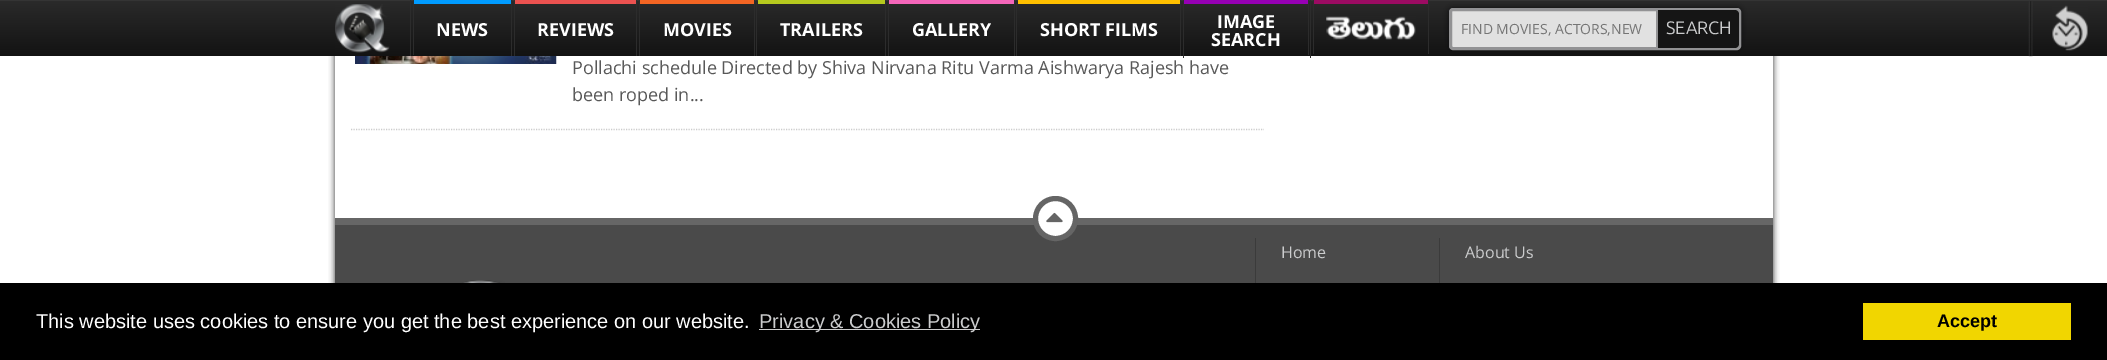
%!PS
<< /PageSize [2107 360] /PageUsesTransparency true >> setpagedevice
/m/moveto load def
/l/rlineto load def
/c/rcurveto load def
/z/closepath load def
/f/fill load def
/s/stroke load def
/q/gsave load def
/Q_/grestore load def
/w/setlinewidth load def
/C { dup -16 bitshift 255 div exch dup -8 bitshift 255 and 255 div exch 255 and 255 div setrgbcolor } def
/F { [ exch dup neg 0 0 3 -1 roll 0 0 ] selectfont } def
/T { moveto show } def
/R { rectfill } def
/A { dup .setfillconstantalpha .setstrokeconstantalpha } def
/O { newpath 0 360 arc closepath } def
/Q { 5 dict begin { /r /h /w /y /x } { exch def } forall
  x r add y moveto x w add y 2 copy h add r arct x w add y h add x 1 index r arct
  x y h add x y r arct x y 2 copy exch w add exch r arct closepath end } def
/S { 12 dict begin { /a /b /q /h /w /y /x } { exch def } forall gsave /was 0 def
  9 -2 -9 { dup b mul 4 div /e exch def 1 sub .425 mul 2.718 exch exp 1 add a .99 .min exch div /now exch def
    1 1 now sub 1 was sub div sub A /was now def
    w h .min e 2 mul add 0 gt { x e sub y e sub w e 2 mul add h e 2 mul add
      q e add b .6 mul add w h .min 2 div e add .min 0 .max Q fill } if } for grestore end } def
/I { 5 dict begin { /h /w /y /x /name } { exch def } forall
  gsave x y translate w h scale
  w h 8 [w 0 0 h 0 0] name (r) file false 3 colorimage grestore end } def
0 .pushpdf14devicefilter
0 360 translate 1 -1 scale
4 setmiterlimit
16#FFFFFF C
0 0 2107 360 R
16#777777 C
335 -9 1438 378 0 3 1 S
335 -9 1438 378 0 3 1 S
q 0 1 m 2107 0 l 0 55 l -2107 0 l z clip newpath
<< /ShadingType 2 /ColorSpace /DeviceRGB /Coords [1054 1.2 1054 56] /Extend [true true] /Function << /FunctionType 2 /Domain [0 1] /C0 [.165 .165 .165] /C1 [.075 .075 .075] /N 1 >> >> shfill Q_
16#343434 C
0 0 2107 1 R
(1.rgb) 335 4 55 49 I
16#2C2C2C C
511 0 1 56 R
410 0 1 56 R
413 0 1 55 R
16#009BFF C
414 0 97 4 R
/OpenSans-Bold 18 F
16#FFFFFF C
(NEWS) 436 36 T
16#2C2C2C C
636 0 1 56 R
514 0 1 56 R
16#EB5250 C
515 0 121 4 R
16#FFFFFF C
(REVIEWS) 537 36 T
16#2C2C2C C
754 0 1 56 R
639 0 1 56 R
16#F36523 C
640 0 114 4 R
16#FFFFFF C
(MOVIES) 663 36 T
16#2C2C2C C
885 0 1 56 R
756 0 1 56 R
16#B6CA1E C
758 0 127 4 R
16#FFFFFF C
(TRAILERS) 780 36 T
16#2C2C2C C
1014 0 1 56 R
888 0 1 56 R
16#F466BA C
889 0 125 4 R
16#FFFFFF C
(GALLERY) 912 36 T
16#2C2C2C C
1180 0 1 56 R
1016 0 1 56 R
16#FFC000 C
1018 0 162 4 R
16#FFFFFF C
(SHORT FILMS) 1040 36 T
335 56 1438 162 R
16#2C2C2C C
1310 0 1 58 R
1183 0 1 58 R
16#9600B4 C
1184 0 124 4 R
16#FFFFFF C
(IMAGE) 1217 28 T
(SEARCH) 1211 46 T
16#2C2C2C C
1308 0 1 55 R
1428 0 1 54 R
1313 0 1 54 R
16#9B0B62 C
1314 0 114 4 R
(2.rgb) 1326 16 90 24 I
16#0C0C0E C
1449 8 292 42 4 3 1 S
16#E1E1E1 C
1450.5 9.5 289 39 2.5 Q q f Q_
16#929294 C
3 w
s
/OpenSans-Regular 14 F
16#757575 C
(FIND MOVIES, ACTORS,NEW) 1461 34 T
16#929294 C
1656 11 82 36 R
16#151515 C
1658 10 m 77 0 l 2 0 4 2 4 4 c 0 30 l 0 2 -2 4 -4 4 c -77 0 l z f
/Ubuntu-Regular 18 F
16#CBCCCD C
(SEARCH) 1666 34 T
(3.rgb) 2028 1 5 56 I
(4.rgb) 2052 5 36 46 I
16#CCCCCC C
1.2 w
[1.25 1.25] 0 setdash
351 129.5 m 913 0 l s
(5.rgb) 355 56 202 8 I
/OpenSans-Regular 18 F
16#585858 C
(Pollachi schedule Directed by Shiva Nirvana Ritu Varma Aishwarya Rajesh have) 572 74 T
(been roped in...) 572 101 T
16#4A4A4A C
335 225 1438 58 R
16#666666 C
335 218 1438 7 R
16#FFFFFF C
1055.5 218.5 20 O q f Q_
16#656565 C
5 w
[] 0 setdash
s
(6.rgb) 1046 212 17 11 I
16#3B3B3B C
1255 238 1 45 R
/OpenSans-Regular 16 F
16#CBCCCD C
(Home) 1281 258 T
16#3B3B3B C
1439 238 1 45 R
16#CBCCCD C
(About Us) 1465 258 T
(7.rgb) 462 280 43 3 I
16#000000 C
0 283 2107 77 R
/LiberationSans-Regular 20 F
16#FFFFFF C
(This website uses cookies to ensure you get the best experience on our website.) 36 328 T
16#CCCCCC C
759 329 221 1 R
16#CBCCCD C
(Privacy & Cookies Policy) 759 328 T
16#F1D600 C
1863 303 208 37 R
/LiberationSans-Bold 18 F
16#000000 C
(Accept) 1937 327 T
.poppdf14devicefilter showpage
